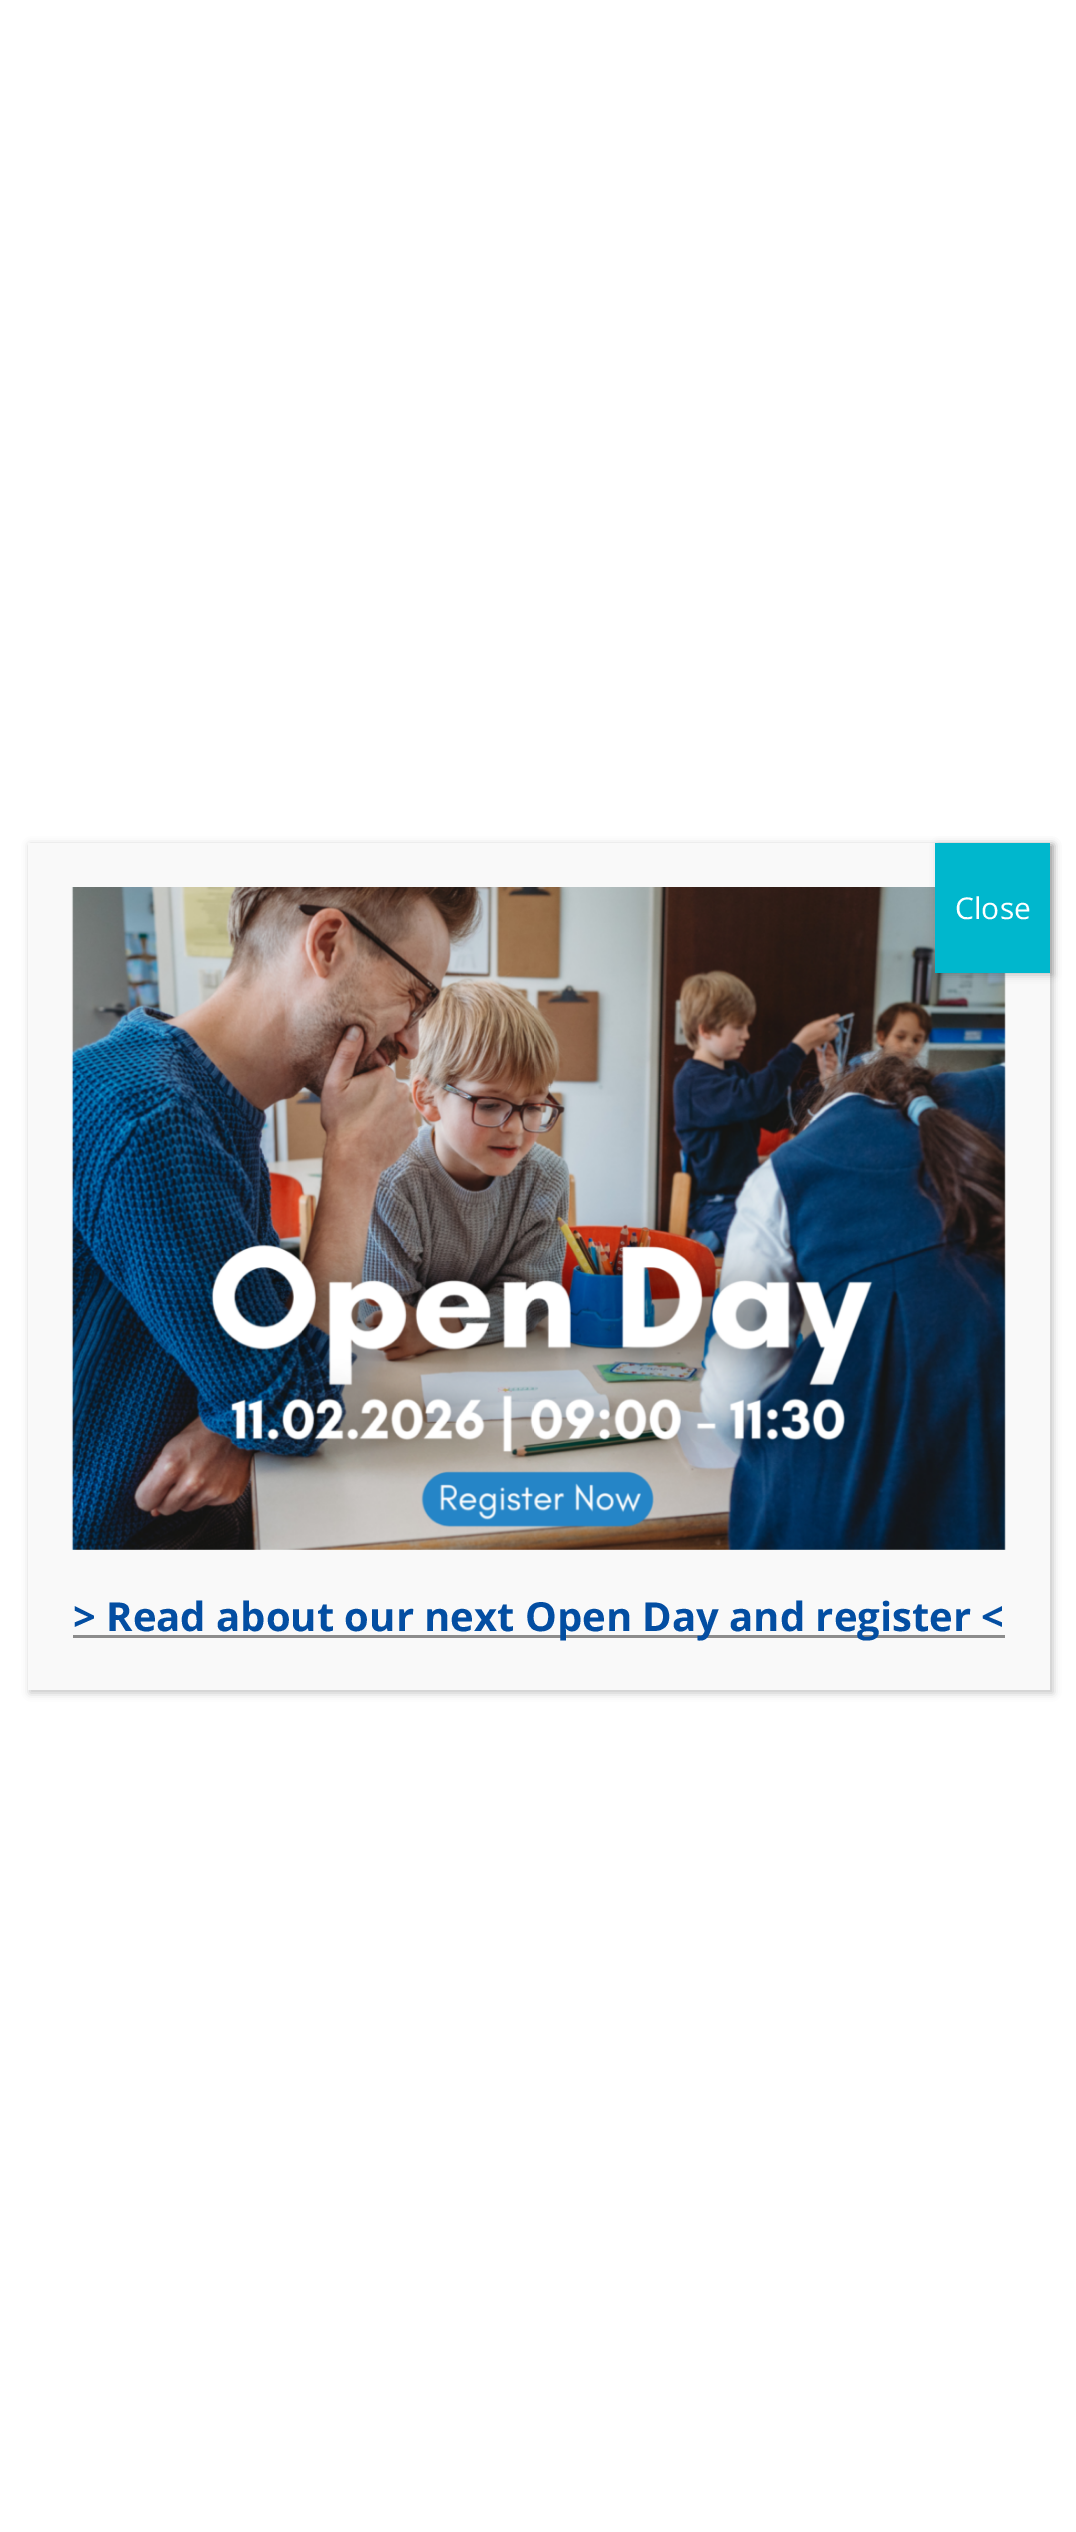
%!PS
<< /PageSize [1076 2532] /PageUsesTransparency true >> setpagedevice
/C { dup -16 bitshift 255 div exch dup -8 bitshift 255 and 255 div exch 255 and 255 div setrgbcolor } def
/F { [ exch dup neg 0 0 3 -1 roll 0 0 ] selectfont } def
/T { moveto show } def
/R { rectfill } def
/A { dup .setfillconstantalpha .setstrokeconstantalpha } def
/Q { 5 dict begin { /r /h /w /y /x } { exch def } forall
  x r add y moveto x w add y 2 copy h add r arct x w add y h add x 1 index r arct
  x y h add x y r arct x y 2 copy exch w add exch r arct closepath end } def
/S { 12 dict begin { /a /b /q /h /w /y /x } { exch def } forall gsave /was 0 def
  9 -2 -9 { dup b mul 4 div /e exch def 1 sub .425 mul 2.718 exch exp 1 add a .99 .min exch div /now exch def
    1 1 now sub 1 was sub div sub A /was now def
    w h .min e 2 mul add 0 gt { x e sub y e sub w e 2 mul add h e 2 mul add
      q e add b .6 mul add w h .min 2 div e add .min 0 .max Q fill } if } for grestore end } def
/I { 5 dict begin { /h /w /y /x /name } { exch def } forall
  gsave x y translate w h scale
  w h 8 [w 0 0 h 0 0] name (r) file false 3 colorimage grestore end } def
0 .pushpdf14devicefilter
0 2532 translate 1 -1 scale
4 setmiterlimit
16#FFFFFF C
0 0 1076 2532 R
16#020202 C
30 845 1023 848 0 4 .23 S
16#F9F9F9 C
28 843 1022 847 R
(1.rgb) 71 887 935 663 I
16#020202 C
938 845 115 130 0 4 .23 S
16#00B7CD C
935 843 115 130 R
/OpenSans-Regular 30 F
16#FFFFFF C
(Close) 955 919 T
16#8C8C8C C
73 1635 932 3 R
/OpenSans-Bold 40 F
16#034EA2 C
(> Read about our next Open Day and register <) 73 1631 T
.poppdf14devicefilter showpage
